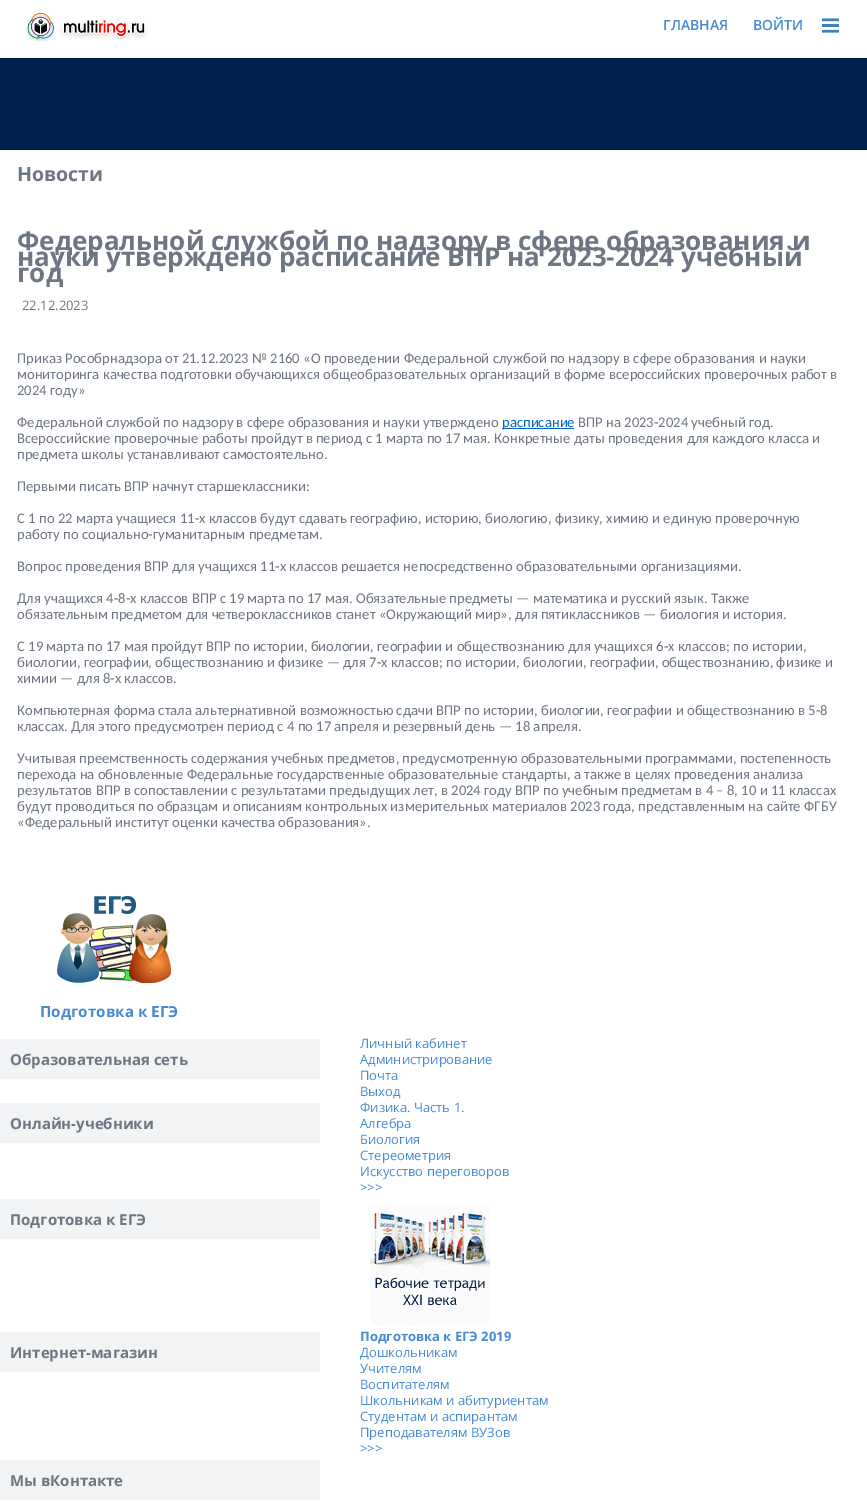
%!PS
<< /PageSize [867 1503] >> setpagedevice
/C { dup -16 bitshift 255 div exch dup -8 bitshift 255 and 255 div exch 255 and 255 div setrgbcolor } def
/F { [ exch dup neg 0 0 3 -1 roll 0 0 ] selectfont } def
/T { moveto show } def
/R { rectfill } def
/I { 5 dict begin { /h /w /y /x /name } { exch def } forall
  gsave x y translate w h scale
  w h 8 [w 0 0 h 0 0] name (r) file false 3 colorimage grestore end } def
0 1503 translate 1 -1 scale
4 setmiterlimit
16#FFFFFF C
0 0 867 1503 R
16#00204D C
0 58 867 92 R
(1.rgb) 26 12 29 30 I
(2.rgb) 60 20 88 19 I
/OpenSans-SemiBold 14 F
16#488BD3 C
(ГЛАВНАЯ) 663 30 T
(ВОЙТИ) 753 30 T
(3.rgb) 822 18 17 15 I
/OpenSans-Bold 19.5 F
16#6F7683 C
(Новости) 17 181 T
/OpenSans-Bold 26 F
(Федеральной службой по надзору в сфере образования и) 17 250 T
(науки утверждено расписание ВПР на 2023-2024 учебный) 17 266 T
(год) 17 282 T
/OpenSans-Regular 13 F
(22.12.2023) 22 310 T
/Carlito-Regular 14.67 F
(Приказ Рособрнадзора от 21.12.2023 № 2160 «О проведении Федеральной службой по надзору в сфере образования и науки) 17 363 T
(мониторинга качества подготовки обучающихся общеобразовательных организаций в форме всероссийских проверочных работ в) 17 379 T
(2024 году») 17 395 T
(Федеральной службой по надзору в сфере образования и науки утверждено) 17 427 T
16#0563C1 C
502 428 72 1 R
(расписание) 502 427 T
16#6F7683 C
(ВПР на 2023-2024 учебный год.) 578 427 T
(Всероссийские проверочные работы пройдут в период с 1 марта по 17 мая. Конкретные даты проведения для каждого класса и) 17 443 T
(предмета школы устанавливают самостоятельно.) 17 459 T
(Первыми писать ВПР начнут старшеклассники:) 17 491 T
(С 1 по 22 марта учащиеся 11-х классов будут сдавать географию, историю, биологию, физику, химию и единую проверочную) 17 523 T
(работу по социально-гуманитарным предметам.) 17 539 T
(Вопрос проведения ВПР для учащихся 11-х классов решается непосредственно образовательными организациями.) 17 571 T
(Для учащихся 4-8-х классов ВПР с 19 марта по 17 мая. Обязательные предметы — математика и русский язык. Также) 17 603 T
(обязательным предметом для четвероклассников станет «Окружающий мир», для пятиклассников — биология и история.) 17 619 T
(С 19 марта по 17 мая пройдут ВПР по истории, биологии, географии и обществознанию для учащихся 6-х классов; по истории,) 17 651 T
(биологии, географии, обществознанию и физике — для 7-х классов; по истории, биологии, географии, обществознанию, физике и) 17 667 T
(химии — для 8-х классов.) 17 683 T
(Компьютерная форма стала альтернативной возможностью сдачи ВПР по истории, биологии, географии и обществознанию в 5-8) 17 715 T
(классах. Для этого предусмотрен период с 4 по 17 апреля и резервный день — 18 апреля.) 17 731 T
(Учитывая преемственность содержания учебных предметов, предусмотренную образовательными программами, постепенность) 17 763 T
(перехода на обновленные Федеральные государственные образовательные стандарты, а также в целях проведения анализа) 17 779 T
(результатов ВПР в сопоставлении с результатами предыдущих лет, в 2024 году ВПР по учебным предметам в 4 – 8, 10 и 11 классах) 17 795 T
(будут проводиться по образцам и описаниям контрольных измерительных материалов 2023 года, представленным на сайте ФГБУ) 17 811 T
(«Федеральный институт оценки качества образования».) 17 827 T
(4.rgb) 57 896 114 87 I
/OpenSans-Bold 15.25 F
16#488BD3 C
(Подготовка к ЕГЭ) 40 1017 T
16#F1F3F4 C
0 1039 320 40 R
/OpenSans-Bold 15 F
16#6F7683 C
(Образовательная сеть) 10 1065 T
/OpenSans-Regular 13 F
16#488BD3 C
(Личный кабинет) 360 1048 T
(Администрирование) 360 1064 T
(Почта) 360 1080 T
(Выход) 360 1096 T
16#F1F3F4 C
0 1103 320 40 R
/OpenSans-Bold 15 F
16#6F7683 C
(Онлайн-учебники) 10 1129 T
/OpenSans-Regular 13 F
16#488BD3 C
(Физика. Часть 1.) 360 1112 T
(Алгебра) 360 1128 T
(Биология) 360 1144 T
(Стереометрия) 360 1160 T
(Искусство переговоров) 360 1176 T
(>>>) 360 1192 T
16#F1F3F4 C
0 1199 320 40 R
/OpenSans-Bold 15 F
16#6F7683 C
(Подготовка к ЕГЭ) 10 1225 T
(5.rgb) 370 1205 120 120 I
16#F1F3F4 C
0 1332 320 40 R
16#6F7683 C
(Интернет-магазин) 10 1358 T
/OpenSans-Bold 13 F
16#488BD3 C
(Подготовка к ЕГЭ 2019) 360 1341 T
/OpenSans-Regular 13 F
(Дошкольникам) 360 1357 T
(Учителям) 360 1373 T
(Воспитателям) 360 1389 T
(Школьникам и абитуриентам) 360 1405 T
(Студентам и аспирантам) 360 1421 T
(Преподавателям ВУЗов) 360 1437 T
(>>>) 360 1453 T
16#F1F3F4 C
0 1460 320 40 R
/OpenSans-Bold 15 F
16#6F7683 C
(Мы вКонтакте) 10 1486 T
showpage
